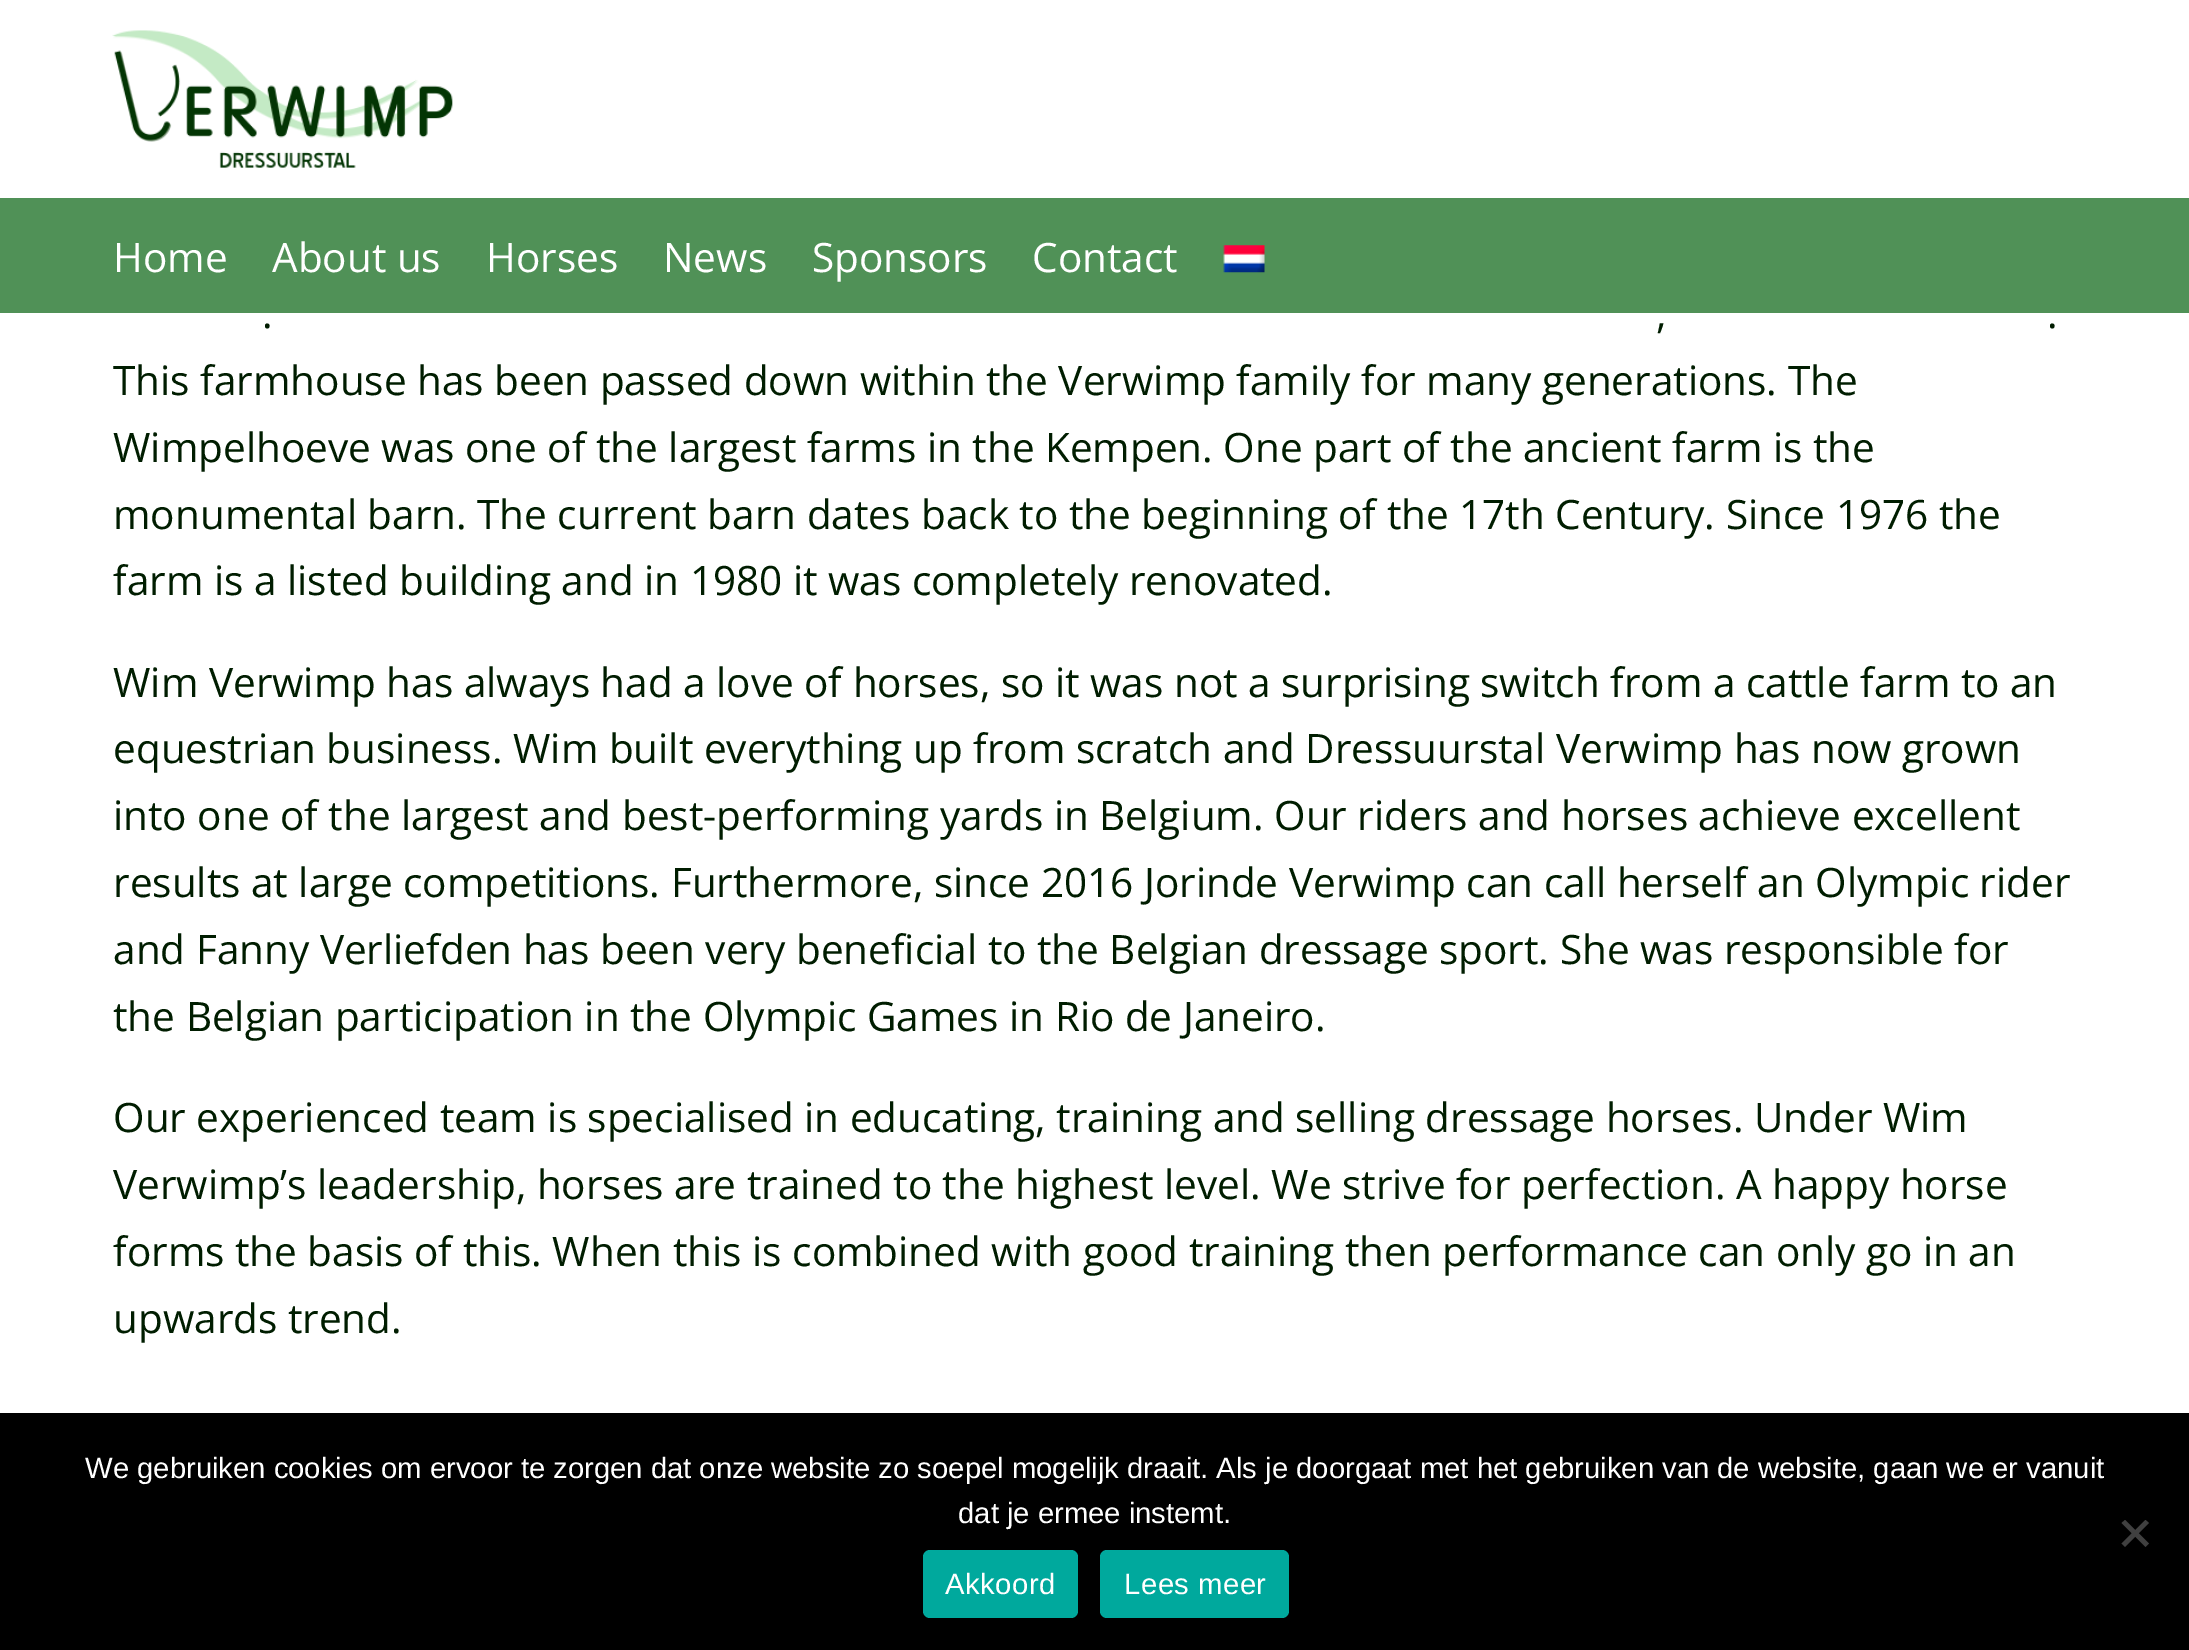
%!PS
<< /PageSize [2189 1650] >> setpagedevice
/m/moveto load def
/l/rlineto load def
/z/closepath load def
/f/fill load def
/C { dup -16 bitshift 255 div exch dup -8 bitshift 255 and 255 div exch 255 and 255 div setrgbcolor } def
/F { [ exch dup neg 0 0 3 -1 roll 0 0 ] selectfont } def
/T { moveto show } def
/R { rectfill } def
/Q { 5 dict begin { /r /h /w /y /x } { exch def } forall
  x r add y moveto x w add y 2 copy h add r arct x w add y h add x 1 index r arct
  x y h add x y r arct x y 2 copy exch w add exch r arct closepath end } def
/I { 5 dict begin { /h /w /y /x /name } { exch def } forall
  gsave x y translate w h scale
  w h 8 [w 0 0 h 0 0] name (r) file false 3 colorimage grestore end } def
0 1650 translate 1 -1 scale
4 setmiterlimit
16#FFFFFF C
0 0 2189 1650 R
16#509157 C
0 198 2189 115 R
(1.rgb) 112 30 341 138 I
/OpenSans-Regular 40.5 F
16#FFFFFF C
(Home) 113 272 T
(About us) 272 272 T
(Horses) 486 272 T
(News) 663 272 T
(Sponsors) 812 272 T
(Contact) 1032 272 T
(2.rgb) 1223 245 42 28 I
16#001D00 C
(.) 262 328 T
(,) 1656 328 T
(.) 2047 328 T
(This farmhouse has been passed down within the Verwimp family for many generations. The) 113 395 T
(Wimpelhoeve was one of the largest farms in the Kempen. One part of the ancient farm is the) 113 462 T
(monumental barn. The current barn dates back to the beginning of the 17th Century. Since 1976 the) 113 529 T
(farm is a listed building and in 1980 it was completely renovated.) 113 595 T
(Wim Verwimp has always had a love of horses, so it was not a surprising switch from a cattle farm to an) 113 697 T
(equestrian business. Wim built everything up from scratch and Dressuurstal Verwimp has now grown) 113 763 T
(into one of the largest and best-performing yards in Belgium. Our riders and horses achieve excellent) 113 830 T
(results at large competitions. Furthermore, since 2016 Jorinde Verwimp can call herself an Olympic rider) 113 897 T
(and Fanny Verliefden has been very beneficial to the Belgian dressage sport. She was responsible for) 113 964 T
(the Belgian participation in the Olympic Games in Rio de Janeiro.) 113 1031 T
(Our experienced team is specialised in educating, training and selling dressage horses. Under Wim) 113 1132 T
(Verwimp’s leadership, horses are trained to the highest level. We strive for perfection. A happy horse) 113 1199 T
(forms the basis of this. When this is combined with good training then performance can only go in an) 113 1266 T
(upwards trend.) 113 1333 T
16#000000 C
0 1413 2189 237 R
/LiberationSans-Regular 29.25 F
16#FFFFFF C
(We gebruiken cookies om ervoor te zorgen dat onze website zo soepel mogelijk draait. Als je doorgaat met het gebruiken van de website, gaan we er vanuit) 85 1478 T
(dat je ermee instemt.) 958 1523 T
16#404040 C
2145.5 1520 m 3.5 3 l -24 24 l -3.5 -3.5 l z f
2121.5 1523 m 3.5 -3 l 24 23.5 l -3.5 3.5 l z f
16#00A99D C
923 1550 155 68 7 Q f
16#FFFFFF C
945 1594 m .5 0 (Akkoord) ashow
16#00A99D C
1100 1550 189 68 7 Q f
16#FFFFFF C
1124 1594 m .5 0 (Lees meer) ashow
showpage
